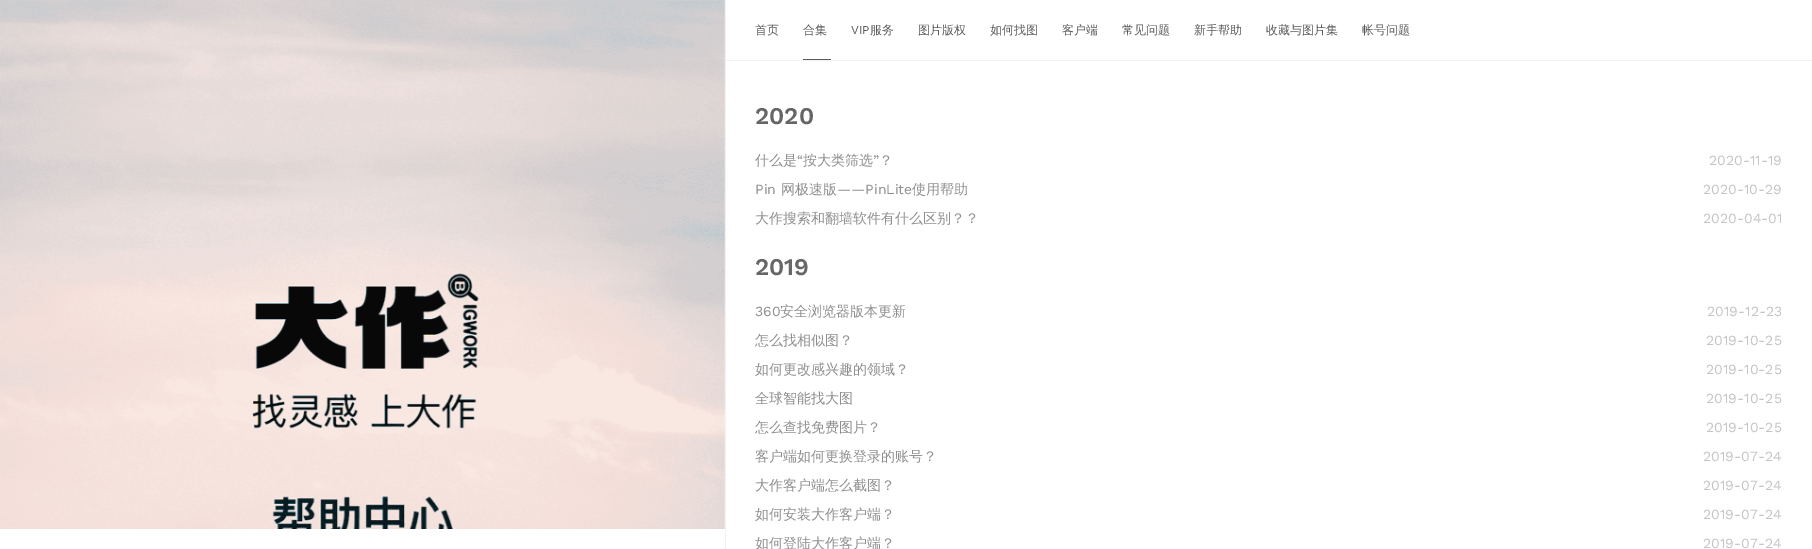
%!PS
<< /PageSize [1812 549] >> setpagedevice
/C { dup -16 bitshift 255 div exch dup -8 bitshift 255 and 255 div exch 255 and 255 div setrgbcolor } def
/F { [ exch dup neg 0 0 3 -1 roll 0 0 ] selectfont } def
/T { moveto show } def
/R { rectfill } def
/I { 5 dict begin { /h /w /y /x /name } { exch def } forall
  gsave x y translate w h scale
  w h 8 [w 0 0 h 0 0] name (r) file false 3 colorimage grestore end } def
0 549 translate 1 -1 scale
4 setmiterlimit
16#FFFFFF C
0 0 1812 549 R
(1.rgb) 0 0 725 529 I
16#F2F2F2 C
725 60 1087 1 R
725 0 1 549 R
/WenQuanYiZenHei-Medium 12 F
16#5A5A5A C
(首页) 755 34 T
(合集) 803 34 T
803 59 28 1 R
/WorkSans-Regular 12 F
(VIP) 851 34 T
/WenQuanYiZenHei-Medium 12 F
(服务) 870 34 T
(图片版权) 918 34 T
(如何找图) 990 34 T
(客户端) 1062 34 T
(常见问题) 1122 34 T
(新手帮助) 1194 34 T
(收藏与图片集) 1266 34 T
(帐号问题) 1362 34 T
/WorkSans-SemiBold 24 F
16#666666 C
(2020) 755 124 T
/WenQuanYiZenHei-Medium 14 F
16#8F8F8F C
(什么是) 755 165 T
/WorkSans-Regular 14 F
(“) 797 165 T
/WenQuanYiZenHei-Medium 14 F
(按大类筛选) 803 165 T
/WorkSans-Regular 14 F
(”) 873 165 T
/WenQuanYiZenHei-Medium 14 F
(？) 879 165 T
/WorkSans-Regular 14 F
16#C5C5C5 C
(2020-11-19) 1709 165 T
16#8F8F8F C
(Pin) 755 194 T
/WenQuanYiZenHei-Medium 14 F
(网极速版) 781 194 T
/WorkSans-Regular 14 F
(——PinLite) 837 194 T
/WenQuanYiZenHei-Medium 14 F
(使用帮助) 912 194 T
/WorkSans-Regular 14 F
16#C5C5C5 C
(2020-10-29) 1703 194 T
/WenQuanYiZenHei-Medium 14 F
16#8F8F8F C
(大作搜索和翻墙软件有什么区别？？) 755 223 T
/WorkSans-Regular 14 F
16#C5C5C5 C
(2020-04-01) 1703 223 T
/WorkSans-SemiBold 24 F
16#666666 C
(2019) 755 275 T
/WorkSans-Regular 14 F
16#8F8F8F C
(360) 755 316 T
/WenQuanYiZenHei-Medium 14 F
(安全浏览器版本更新) 780 316 T
/WorkSans-Regular 14 F
16#C5C5C5 C
(2019-12-23) 1707 316 T
/WenQuanYiZenHei-Medium 14 F
16#8F8F8F C
(怎么找相似图？) 755 345 T
/WorkSans-Regular 14 F
16#C5C5C5 C
(2019-10-25) 1706 345 T
/WenQuanYiZenHei-Medium 14 F
16#8F8F8F C
(如何更改感兴趣的领域？) 755 374 T
/WorkSans-Regular 14 F
16#C5C5C5 C
(2019-10-25) 1706 374 T
/WenQuanYiZenHei-Medium 14 F
16#8F8F8F C
(全球智能找大图) 755 403 T
/WorkSans-Regular 14 F
16#C5C5C5 C
(2019-10-25) 1706 403 T
/WenQuanYiZenHei-Medium 14 F
16#8F8F8F C
(怎么查找免费图片？) 755 432 T
/WorkSans-Regular 14 F
16#C5C5C5 C
(2019-10-25) 1706 432 T
/WenQuanYiZenHei-Medium 14 F
16#8F8F8F C
(客户端如何更换登录的账号？) 755 461 T
/WorkSans-Regular 14 F
16#C5C5C5 C
(2019-07-24) 1703 461 T
/WenQuanYiZenHei-Medium 14 F
16#8F8F8F C
(大作客户端怎么截图？) 755 490 T
/WorkSans-Regular 14 F
16#C5C5C5 C
(2019-07-24) 1703 490 T
/WenQuanYiZenHei-Medium 14 F
16#8F8F8F C
(如何安装大作客户端？) 755 519 T
/WorkSans-Regular 14 F
16#C5C5C5 C
(2019-07-24) 1703 519 T
/WenQuanYiZenHei-Medium 14 F
16#8F8F8F C
(如何登陆大作客户端？) 755 548 T
/WorkSans-Regular 14 F
16#C5C5C5 C
(2019-07-24) 1703 548 T
showpage
